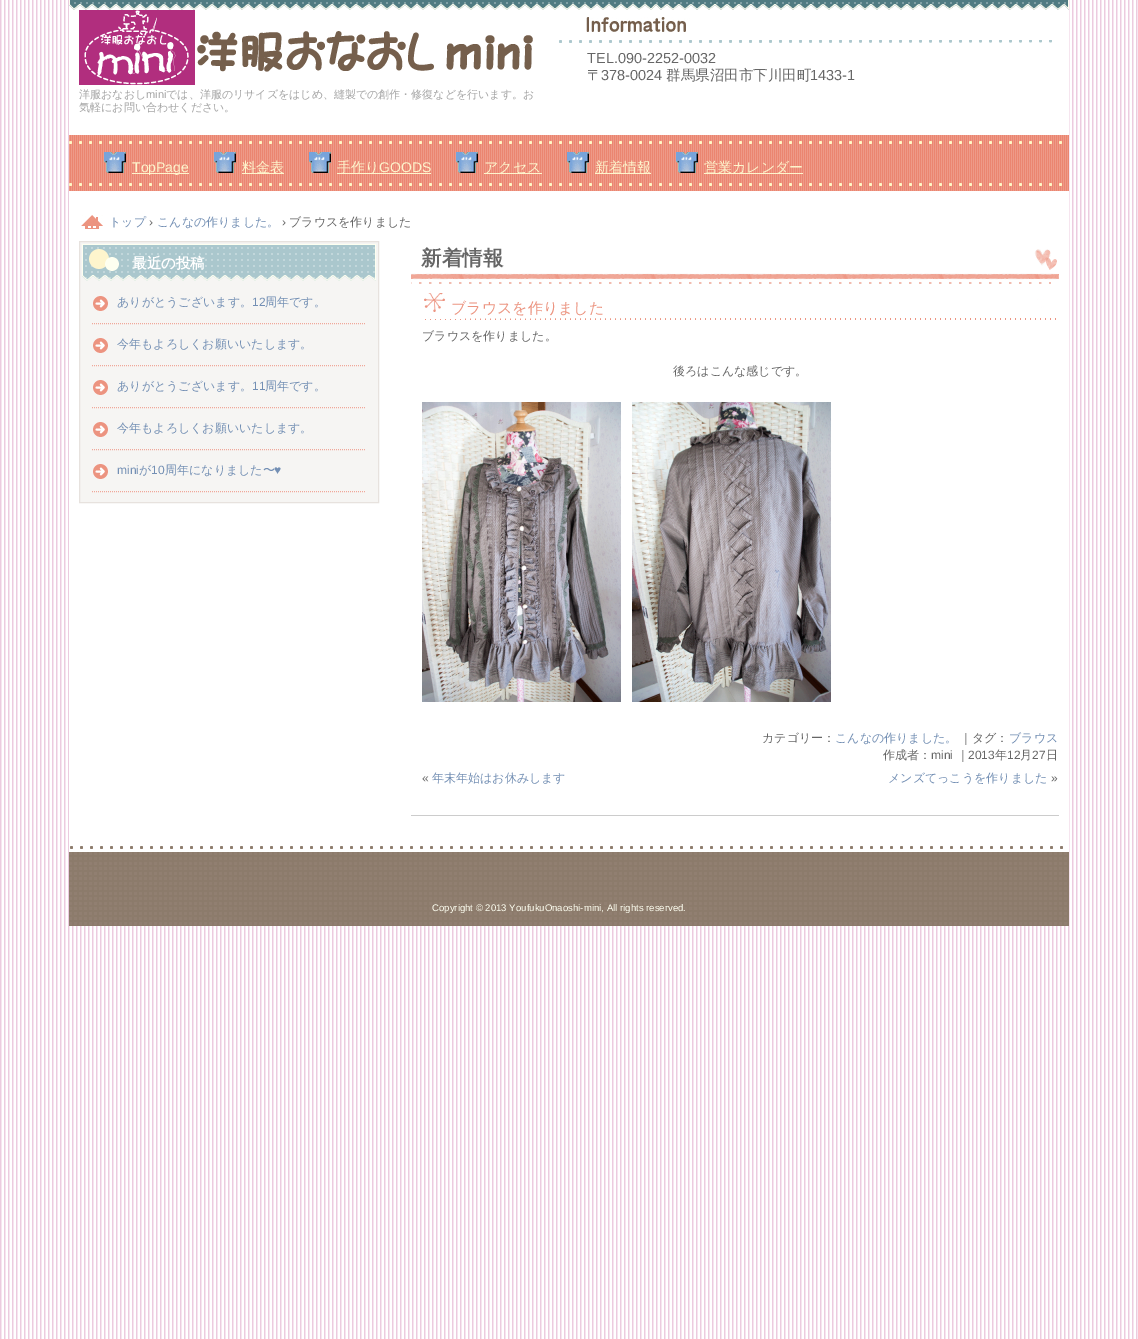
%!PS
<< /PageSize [1138 1339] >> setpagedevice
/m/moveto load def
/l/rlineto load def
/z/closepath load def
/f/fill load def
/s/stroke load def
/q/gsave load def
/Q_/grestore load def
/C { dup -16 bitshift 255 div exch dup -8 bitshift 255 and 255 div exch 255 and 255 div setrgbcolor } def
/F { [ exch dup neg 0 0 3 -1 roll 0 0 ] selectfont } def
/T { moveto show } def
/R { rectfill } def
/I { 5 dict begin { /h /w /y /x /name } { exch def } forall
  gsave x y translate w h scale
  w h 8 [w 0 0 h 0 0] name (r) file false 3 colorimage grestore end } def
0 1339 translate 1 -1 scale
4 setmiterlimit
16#FFFFFF C
0 0 1138 1339 R
(1.rgb) 0 0 1138 1339 I
69 10 1000 836 R
(2.rgb) 69 0 1000 10 I
(3.rgb) 559 17 493 26 I
/LiberationSans-Regular 14.5 F
16#666666 C
(TEL.090-2252-0032) 587 63 T
/WenQuanYiZenHei-Medium 14.5 F
(〒) 587 80 T
/LiberationSans-Regular 14.5 F
(378-0024) 601 80 T
/WenQuanYiZenHei-Medium 14.5 F
(群馬県沼田市下川田町) 666 80 T
/LiberationSans-Regular 14.5 F
(1433-1) 810 80 T
(4.rgb) 79 10 454 75 I
/WenQuanYiZenHei-Medium 11 F
16#A4A4A4 C
(洋服おなおし) 79 98 T
/LiberationSans-Regular 11 F
(mini) 146 98 T
/WenQuanYiZenHei-Medium 11 F
(では、洋服のリサイズをはじめ、縫製での創作・修復などを行います。お) 166 98 T
(気軽にお問い合わせください。) 79 111 T
(5.rgb) 69 135 1000 56 I
(6.rgb) 104 152 22 21 I
16#FEF5CC C
132 173 57 1 R
/LiberationSans-Regular 14 F
(TopPage) 132 172 T
(6.rgb) 214 152 22 21 I
242 173 42 1 R
/WenQuanYiZenHei-Medium 14 F
(料金表) 242 172 T
(7.rgb) 309 152 22 21 I
337 173 94 1 R
(手作り) 337 172 T
/LiberationSans-Regular 14 F
(GOODS) 379 172 T
(6.rgb) 456 152 22 21 I
484 173 58 1 R
/WenQuanYiZenHei-Medium 14 F
(アクセス) 484 172 T
(7.rgb) 567 152 22 21 I
595 173 56 1 R
(新着情報) 595 172 T
(6.rgb) 676 152 22 21 I
704 173 99 1 R
(営業カレンダー) 704 172 T
(8.rgb) 81 215 22 14 I
/WenQuanYiZenHei-Medium 12 F
16#738FB4 C
(トップ) 109 226 T
/LiberationSans-Regular 12 F
16#666666 C
(›) 149 226 T
/WenQuanYiZenHei-Medium 12 F
16#738FB4 C
(こんなの作りました。) 157 226 T
/LiberationSans-Regular 12 F
16#666666 C
(›) 282 226 T
/WenQuanYiZenHei-Medium 12 F
(ブラウスを作りました) 289 226 T
16#F6F5F3 C
79.5 241.5 m 299 0 l 0 261 l -299 0 l z q f Q_
16#E7E2DE C
s
(9.rgb) 82 244 294 37 I
/WenQuanYiZenHei-Bold 14.5 F
16#FFFFFF C
(最近の投稿) 132 268 T
(10.rgb) 93 296 15 15 I
16#F0A89A C
[1 1] 0 setdash
92 323.5 m 274 0 l s
/WenQuanYiZenHei-Medium 12 F
16#738FB4 C
(ありがとうございます。) 117 306 T
/LiberationSans-Regular 12 F
(12) 252 306 T
/WenQuanYiZenHei-Medium 12 F
(周年です。) 265 306 T
(10.rgb) 93 338 15 15 I
16#F0A89A C
92 365.5 m 274 0 l s
16#738FB4 C
(今年もよろしくお願いいたします。) 117 348 T
(10.rgb) 93 380 15 15 I
16#F0A89A C
92 407.5 m 274 0 l s
16#738FB4 C
(ありがとうございます。) 117 390 T
/LiberationSans-Regular 12 F
(11) 252 390 T
/WenQuanYiZenHei-Medium 12 F
(周年です。) 265 390 T
(10.rgb) 93 422 15 15 I
16#F0A89A C
92 449.5 m 274 0 l s
16#738FB4 C
(今年もよろしくお願いいたします。) 117 432 T
(10.rgb) 93 464 15 15 I
16#F0A89A C
92 491.5 m 274 0 l s
/LiberationSans-Regular 12 F
16#738FB4 C
(mini) 117 474 T
/WenQuanYiZenHei-Medium 12 F
(が) 139 474 T
/LiberationSans-Regular 12 F
(10) 151 474 T
/WenQuanYiZenHei-Medium 12 F
(周年になりました〜) 165 474 T
/LiberationSans-Regular 12 F
(♥) 274 474 T
(11.rgb) 411 249 648 35 I
/WenQuanYiZenHei-Bold 20.5 F
16#666666 C
(新着情報) 421 265 T
16#CCCCCC C
411 815 648 1 R
(12.rgb) 424 293 632 27 I
/WenQuanYiZenHei-Medium 15 F
16#EC9480 C
(ブラウスを作りました) 451 313 T
/WenQuanYiZenHei-Medium 12 F
16#666666 C
(ブラウスを作りました。) 422 340 T
(後ろはこんな感じです。) 673 375 T
(13.rgb) 422 402 199 300 I
(14.rgb) 632 402 199 300 I
(カテゴリー：) 762 742 T
16#738FB4 C
(こんなの作りました。) 835 742 T
16#666666 C
(｜タグ：) 960 742 T
16#738FB4 C
(ブラウス) 1009 742 T
16#666666 C
(作成者：) 883 759 T
/LiberationSans-Regular 12 F
(mini) 931 759 T
/WenQuanYiZenHei-Medium 12 F
(｜) 957 759 T
/LiberationSans-Regular 12 F
(2013) 968 759 T
/WenQuanYiZenHei-Medium 12 F
(年) 995 759 T
/LiberationSans-Regular 12 F
(12) 1007 759 T
/WenQuanYiZenHei-Medium 12 F
(月) 1020 759 T
/LiberationSans-Regular 12 F
(27) 1032 759 T
/WenQuanYiZenHei-Medium 12 F
(日) 1046 759 T
/LiberationSans-Regular 12 F
(«) 422 782 T
/WenQuanYiZenHei-Medium 12 F
16#738FB4 C
(年末年始はお休みします) 432 782 T
(メンズてっこうを作りました) 888 782 T
/LiberationSans-Regular 12 F
16#666666 C
(») 1051 782 T
(15.rgb) 69 846 1000 80 I
/LiberationSans-Regular 9.6 F
16#FEFFF1 C
(Copyright © 2013 YoufukuOnaoshi-mini, All rights reserved.) 432 911 T
showpage
